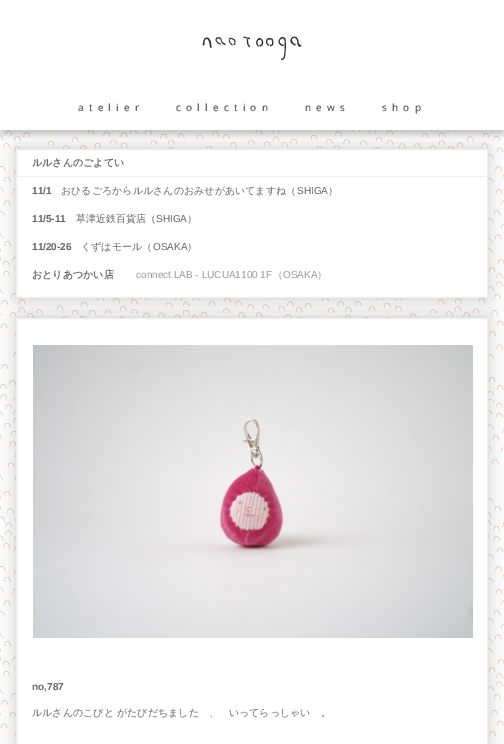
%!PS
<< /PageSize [504 744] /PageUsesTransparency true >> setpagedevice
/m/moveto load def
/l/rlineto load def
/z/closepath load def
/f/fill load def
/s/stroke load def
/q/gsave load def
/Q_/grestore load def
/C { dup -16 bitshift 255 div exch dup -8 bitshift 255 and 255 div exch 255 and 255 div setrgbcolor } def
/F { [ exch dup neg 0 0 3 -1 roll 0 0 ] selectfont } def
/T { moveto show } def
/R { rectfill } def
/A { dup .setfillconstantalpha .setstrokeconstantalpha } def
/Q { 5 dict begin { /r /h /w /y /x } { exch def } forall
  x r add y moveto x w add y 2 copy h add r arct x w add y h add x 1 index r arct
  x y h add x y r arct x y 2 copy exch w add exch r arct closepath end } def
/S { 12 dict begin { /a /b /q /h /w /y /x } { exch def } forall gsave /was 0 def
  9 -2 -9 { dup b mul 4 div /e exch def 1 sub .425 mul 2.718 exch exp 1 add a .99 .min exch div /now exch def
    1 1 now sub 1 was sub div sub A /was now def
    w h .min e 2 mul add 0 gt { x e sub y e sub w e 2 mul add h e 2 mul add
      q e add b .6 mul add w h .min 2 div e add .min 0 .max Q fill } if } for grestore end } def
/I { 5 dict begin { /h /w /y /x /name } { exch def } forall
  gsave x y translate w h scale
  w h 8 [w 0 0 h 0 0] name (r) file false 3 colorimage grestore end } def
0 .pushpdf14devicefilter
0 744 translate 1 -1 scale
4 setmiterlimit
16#FFFFFF C
0 0 504 744 R
(1.rgb) 0 130 504 607 I
(2.rgb) 202 36 100 24 I
16#000000 C
0 89 504 46 0 2.5 .2 S
16#FFFFFF C
0 85 504 45 R
/OpenSans-Regular 10 F
16#333333 C
78 111 m 5.25 0 (atelier) ashow
176 111 m 5.25 0 (collection) ashow
305 111 m 5.25 0 (news) ashow
382 111 m 5.25 0 (shop) ashow
16#000000 C
16 149 472 149 0 10 .2 S
16#FFFFFF C
16.5 149.5 m 471 0 l 0 148 l -471 0 l z q f Q_
16#EEEEEE C
s
/WenQuanYiZenHei-Bold 10 F
16#666666 C
(ルルさんのごよてい) 32 166 T
16#EEEEEE C
17 176 470 1 R
/LiberationSans-Bold 10 F
16#666666 C
(11/1) 32 194 T
/WenQuanYiZenHei-Medium 10 F
(おひるごろからルルさんのおみせがあいてますね（) 61 194 T
/LiberationSans-Regular 10 F
(SHIGA) 297 194 T
/WenQuanYiZenHei-Medium 10 F
(）) 328 194 T
/LiberationSans-Bold 10 F
(11/5-11) 32 222 T
/WenQuanYiZenHei-Medium 10 F
(草津近鉄百貨店（) 76 222 T
/LiberationSans-Regular 10 F
(SHIGA) 156 222 T
/WenQuanYiZenHei-Medium 10 F
(）) 187 222 T
/LiberationSans-Bold 10 F
(11/20-26) 32 250 T
/WenQuanYiZenHei-Medium 10 F
(くずはモール（) 81 250 T
/LiberationSans-Regular 10 F
(OSAKA) 153 250 T
/WenQuanYiZenHei-Medium 10 F
(）) 187 250 T
/WenQuanYiZenHei-Bold 10 F
(おとりあつかい店) 32 278 T
/LiberationSans-Regular 10 F
16#999999 C
(connect.LAB - LUCUA1100 1F) 136 278 T
/WenQuanYiZenHei-Medium 10 F
(（) 273 278 T
/LiberationSans-Regular 10 F
(OSAKA) 283 278 T
/WenQuanYiZenHei-Medium 10 F
(）) 317 278 T
16#000000 C
16 318 472 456 0 10 .2 S
16#FFFFFF C
16.5 318.5 m 471 0 l 0 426 l -471 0 l z q f Q_
16#EEEEEE C
s
(3.rgb) 33 345 440 293 I
/LiberationSans-Bold 10 F
16#666666 C
(no,787) 32 690 T
/WenQuanYiZenHei-Medium 10 F
(ルルさんのこびと がたびだちました　、　いってらっしゃい　。) 32 716 T
.poppdf14devicefilter showpage
